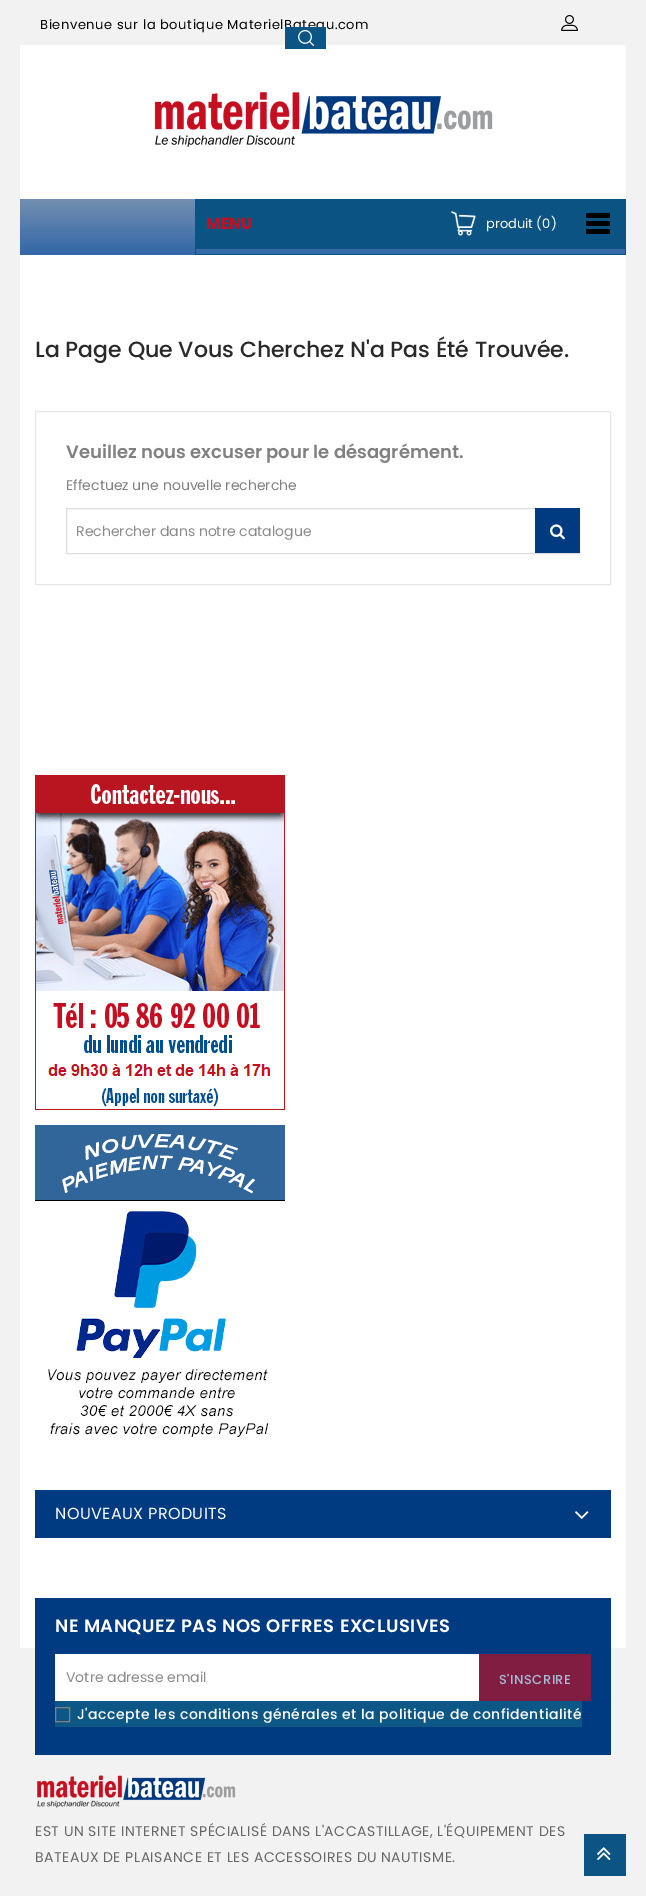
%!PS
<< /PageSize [646 1896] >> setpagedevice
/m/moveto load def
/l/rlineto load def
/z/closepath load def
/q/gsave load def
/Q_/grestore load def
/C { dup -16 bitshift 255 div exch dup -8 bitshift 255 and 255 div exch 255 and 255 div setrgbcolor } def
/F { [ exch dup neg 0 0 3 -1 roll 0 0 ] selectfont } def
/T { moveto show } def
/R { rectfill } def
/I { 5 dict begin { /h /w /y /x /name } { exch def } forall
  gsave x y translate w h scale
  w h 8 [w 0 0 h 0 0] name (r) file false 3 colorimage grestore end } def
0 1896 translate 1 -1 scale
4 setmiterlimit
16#F2F2F2 C
0 0 646 1896 R
16#FFFFFF C
20 45 606 1603 R
/Poppins-Regular 13 F
16#000000 C
40 29 m .6 0 (Bienvenue sur la boutique MaterielBateau.com) ashow
(1.rgb) 561 15 17 16 I
q 20 199 m 605 0 l 0 56 l -605 0 l z clip newpath
<< /ShadingType 2 /ColorSpace /DeviceRGB /Coords [20 199 20 255] /Extend [true true] /Function << /FunctionType 2 /Domain [0 1] /C0 [.451 .561 .69] /C1 [.196 .404 .659] /N 1 >> >> shfill Q_
16#0B5383 C
625 199 1 56 R
195 254 431 1 R
195 199 1 56 R
196 199 429 50 R
(2.rgb) 586 213 24 21 I
/Poppins-Bold 16 F
16#C50E1F C
(MENU) 206 229 T
16#0B5483 C
285 27 41 22 R
(3.rgb) 298 30 17 16 I
(4.rgb) 154 92 339 55 I
(5.rgb) 451 211 25 25 I
/Poppins-Regular 13 F
16#FFFFFF C
(produit \(0\)) 486 228 T
/Poppins-Medium 22 F
16#292929 C
(La Page Que Vous Cherchez N'a Pas Été Trouvée.) 35 357 T
16#E6E6E6 C
35.5 411.5 575 173 rectstroke
/Poppins-SemiBold 18 F
16#808080 C
(Veuillez nous excuser pour le désagrément.) 66 458 T
/Poppins-Regular 14 F
(Effectuez une nouvelle recherche) 66 490 T
16#DDDDDD C
66.5 508.5 513 45 rectstroke
16#8B8B8B C
(Rechercher dans notre catalogue) 76 536 T
16#003A80 C
535 508 45 45 R
(6.rgb) 550 524 15 16 I
(7.rgb) 35 775 250 335 I
(8.rgb) 35 1125 250 312 I
35 1490 576 48 R
/Poppins-Regular 16 F
16#FFFFFF C
55 1519 m .4 0 (NOUVEAUX PRODUITS) ashow
(9.rgb) 575 1511 14 8 I
16#003A80 C
35 1598 576 157 R
/Poppins-SemiBold 18 F
16#FFFFFF C
55 1632 m .5 0 (NE MANQUEZ PAS NOS OFFRES EXCLUSIVES) ashow
55 1654 424 47 R
/Poppins-Regular 14 F
16#8B8B8B C
(Votre adresse email) 66 1682 T
16#801D41 C
479 1654 112 47 R
/Poppins-Medium 13 F
16#A6BAD3 C
499 1684 m .5 0 (S'INSCRIRE) ashow
16#0D5786 C
55 1701 527 26 R
16#808080 C
55.5 1707.5 14 14 rectstroke
/Poppins-Medium 14 F
16#FFFFFF C
77 1719 m .5 0 (J'accepte les conditions générales et la politique de confidentialité) ashow
(10.rgb) 37 1775 199 33 I
/Poppins-Regular 14 F
16#666666 C
35 1836 m .5 0 (EST UN SITE INTERNET SPÉCIALISÉ DANS L'ACCASTILLAGE, L'ÉQUIPEMENT DES) ashow
35 1862 m .5 0 (BATEAUX DE PLAISANCE ET LES ACCESSOIRES DU NAUTISME.) ashow
16#0B5483 C
584 1834 42 42 R
(11.rgb) 597 1847 14 14 I
showpage
